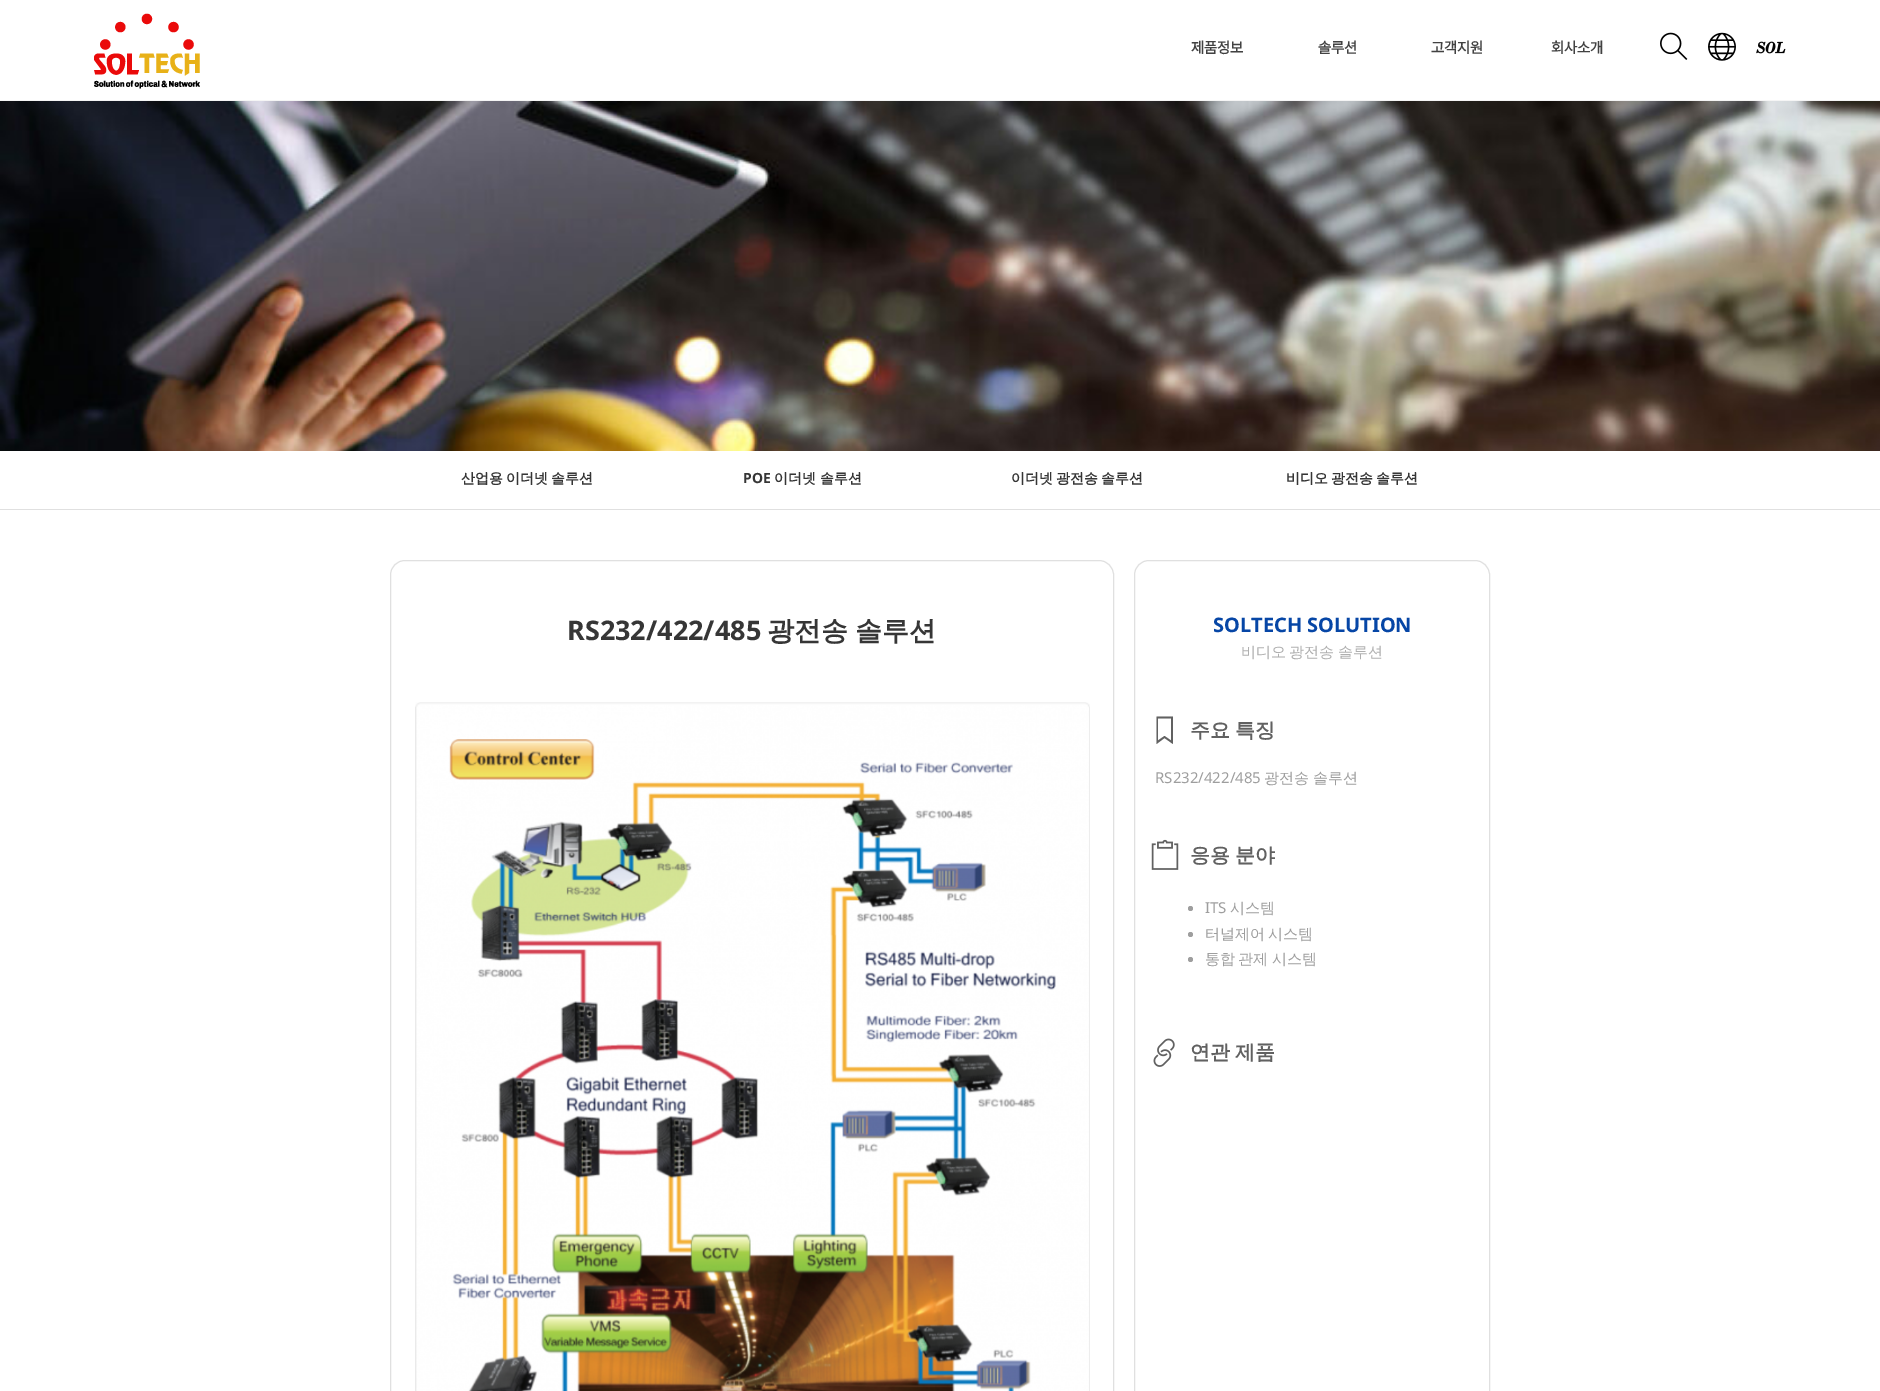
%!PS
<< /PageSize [1880 1391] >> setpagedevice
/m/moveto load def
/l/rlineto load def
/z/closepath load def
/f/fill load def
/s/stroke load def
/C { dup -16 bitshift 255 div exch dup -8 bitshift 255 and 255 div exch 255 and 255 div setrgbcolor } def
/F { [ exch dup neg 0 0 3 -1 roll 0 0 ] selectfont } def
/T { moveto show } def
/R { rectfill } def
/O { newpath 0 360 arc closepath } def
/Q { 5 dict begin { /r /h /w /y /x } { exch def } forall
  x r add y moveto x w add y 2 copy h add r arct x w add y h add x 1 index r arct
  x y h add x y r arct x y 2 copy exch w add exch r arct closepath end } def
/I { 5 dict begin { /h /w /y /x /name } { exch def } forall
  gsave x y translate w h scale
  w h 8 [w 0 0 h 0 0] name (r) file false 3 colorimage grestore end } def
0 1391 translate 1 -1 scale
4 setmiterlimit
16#FFFFFF C
0 0 1880 1391 R
16#F5F5F5 C
0 100 1880 1 R
(1.rgb) 94 13 106 76 I
/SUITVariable-Bold 15 F
16#424242 C
(제품정보) 1191 53 T
(솔루션) 1318 53 T
(고객지원) 1431 53 T
(회사소개) 1551 53 T
(2.rgb) 1660 32 28 28 I
(3.rgb) 1708 32 28 29 I
(4.rgb) 1756 41 30 13 I
(5.rgb) 0 101 1880 350 I
16#E0E0E0 C
0 509 1880 1 R
/WenQuanYiZenHei-Bold 14 F
16#363636 C
461 483 m -1 0 32 (산업용 이더넷 솔루션) widthshow
/NotoSans-Bold 14 F
(POE) 743 483 T
/WenQuanYiZenHei-Bold 14 F
(이더넷 솔루션) 774 483 T
1011 483 m -1 0 32 (이더넷 광전송 솔루션) widthshow
1286 483 m -1 0 32 (비디오 광전송 솔루션) widthshow
16#E0E0E0 C
390.5 560.5 723 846 14.5 Q s
/NotoSans-Bold 27 F
16#363636 C
(RS232/422/485) 567 640 T
/WenQuanYiZenHei-Bold 27 F
767 640 m -1 0 32 (광전송 솔루션) widthshow
(6.rgb) 415 702 675 689 I
16#E0E0E0 C
1134.5 560.5 355 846 14.5 Q s
/NotoSans-Bold 20 F
16#0646A6 C
(SOLTECH SOLUTION) 1213 632 T
/WenQuanYiZenHei-Medium 15 F
16#AFAFAF C
1241 657 m -1 0 32 (비디오 광전송 솔루션) widthshow
16#616161 C
1156.5 716.5 m 0 27.5 l 8 -6 l 8.5 6 l 0 -27.5 l z 1171 740.5 m -6.5 -4.5 l -6.5 4.5 l 0 -22 l 13 0 l z f
/WenQuanYiZenHei-Bold 20 F
1190 737 m -1 0 32 (주요 특징) widthshow
/NotoSans-Regular 15 F
16#9E9E9E C
(RS232/422/485) 1155 783 T
/WenQuanYiZenHei-Medium 15 F
(광전송 솔루션) 1264 783 T
(7.rgb) 1151 839 28 31 I
/WenQuanYiZenHei-Bold 20 F
16#616161 C
1190 862 m -1 0 32 (응용 분야) widthshow
16#9E9E9E C
1190.5 908.5 2.5 O f
/NotoSans-Regular 15 F
(ITS) 1205 913 T
/WenQuanYiZenHei-Medium 15 F
(시스템) 1230 913 T
1190.5 934.5 2.5 O f
1205 939 m -1 0 32 (터널제어 시스템) widthshow
1190.5 959.5 2.5 O f
1205 964 m -1 0 32 (통합 관제 시스템) widthshow
(8.rgb) 1153 1038 22 29 I
/WenQuanYiZenHei-Bold 20 F
16#616161 C
1190 1059 m -1 0 32 (연관 제품) widthshow
showpage
